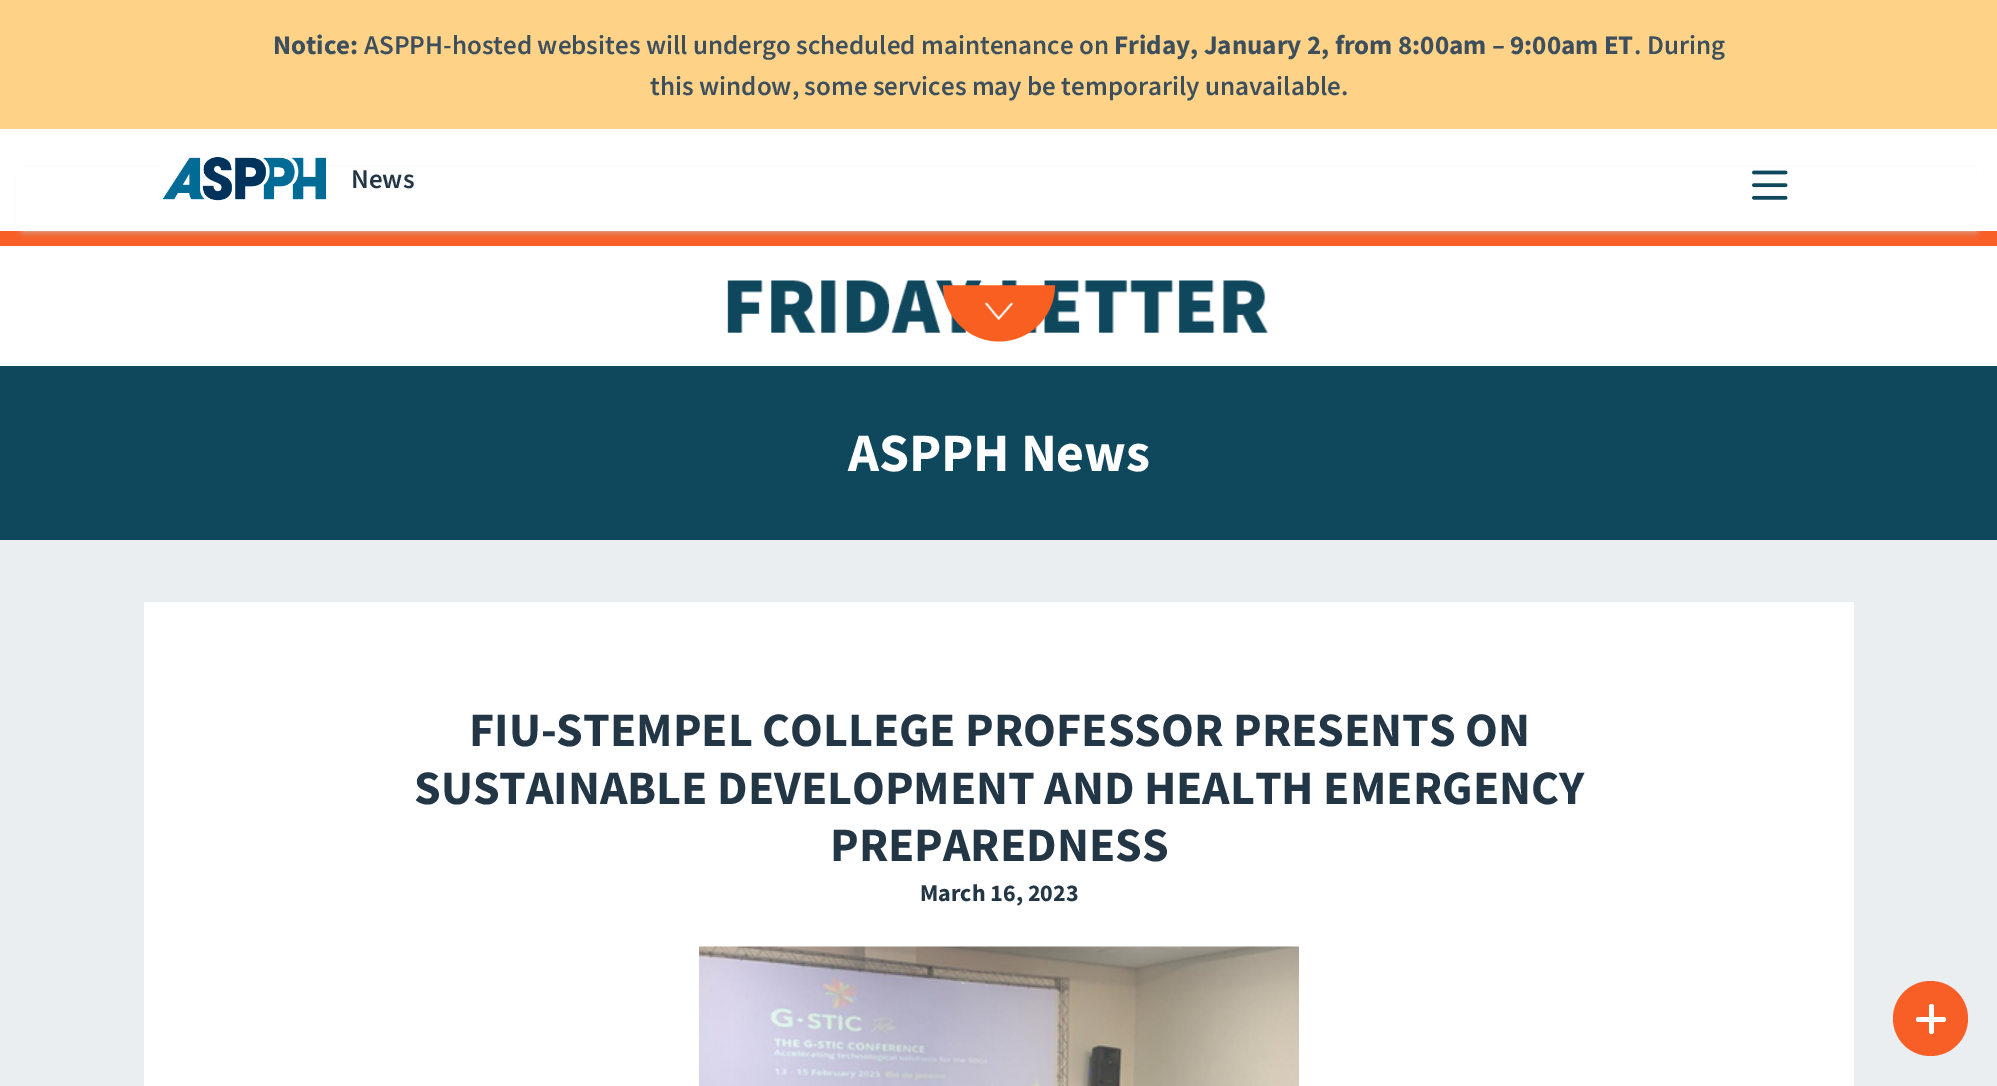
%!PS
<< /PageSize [1997 1086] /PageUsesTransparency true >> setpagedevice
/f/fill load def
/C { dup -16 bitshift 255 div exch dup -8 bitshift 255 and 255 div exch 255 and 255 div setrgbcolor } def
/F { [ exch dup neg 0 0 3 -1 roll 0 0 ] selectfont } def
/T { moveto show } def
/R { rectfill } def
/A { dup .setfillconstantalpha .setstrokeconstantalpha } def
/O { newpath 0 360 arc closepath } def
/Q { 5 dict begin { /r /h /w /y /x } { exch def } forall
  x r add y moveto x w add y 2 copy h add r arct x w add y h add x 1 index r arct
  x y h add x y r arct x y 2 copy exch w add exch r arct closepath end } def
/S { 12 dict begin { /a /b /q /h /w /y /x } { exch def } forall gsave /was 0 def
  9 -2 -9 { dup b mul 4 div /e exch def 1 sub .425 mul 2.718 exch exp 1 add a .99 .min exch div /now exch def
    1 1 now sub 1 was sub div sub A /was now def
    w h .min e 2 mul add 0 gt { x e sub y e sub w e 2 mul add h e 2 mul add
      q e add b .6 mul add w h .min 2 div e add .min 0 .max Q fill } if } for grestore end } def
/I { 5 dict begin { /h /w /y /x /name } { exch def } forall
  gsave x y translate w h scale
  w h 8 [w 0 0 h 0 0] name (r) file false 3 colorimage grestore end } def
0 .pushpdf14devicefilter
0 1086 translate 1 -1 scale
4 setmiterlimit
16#FFFFFF C
0 0 1997 1086 R
16#FFD387 C
0 0 1997 129 R
/SourceSansPro-Bold 27 F
16#3D4F5D C
(Notice:) 273 54 T
/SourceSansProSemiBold-SemiBold 27 F
(ASPPH-hosted websites will undergo scheduled maintenance on) 364 54 T
/SourceSansPro-Bold 27 F
(Friday, January 2, from 8:00am – 9:00am ET) 1114 54 T
/SourceSansProSemiBold-SemiBold 27 F
(. During) 1634 54 T
(this window, some services may be temporarily unavailable.) 650 95 T
16#F85F26 C
0 231 1997 15 R
16#BCC6CE C
23 174 1953 57 0 4 1 S
16#FFFFFF C
16 167 1967 64 R
(1.rgb) 162 157 164 44 I
16#223646 C
(News) 351 188 T
(2.rgb) 1752 170 36 30 I
(3.rgb) 727 280 542 53 I
(4.rgb) 943 285 113 57 I
16#0F475C C
0 366 1997 174 R
/SourceSansPro-Bold 54 F
16#FFFFFF C
(ASPPH News) 848 471 T
16#EBEEF1 C
0 540 1997 546 R
16#FFFFFF C
144 602 1710 484 R
/SourceSansPro-Bold 48 F
16#223646 C
(FIU-STEMPEL COLLEGE PROFESSOR PRESENTS ON) 469 746 T
(SUSTAINABLE DEVELOPMENT AND HEALTH EMERGENCY) 414 804 T
(PREPAREDNESS) 830 861 T
/SourceSansPro-Bold 24 F
(March 16, 2023) 920 901 T
(5.rgb) 699 946 600 140 I
16#F85F26 C
1930.5 1018.5 37.5 O f
16#FFFFFF C
1929 1004 5 30 2.5 Q f
1916 1017 30 5 2.5 Q f
.poppdf14devicefilter showpage
